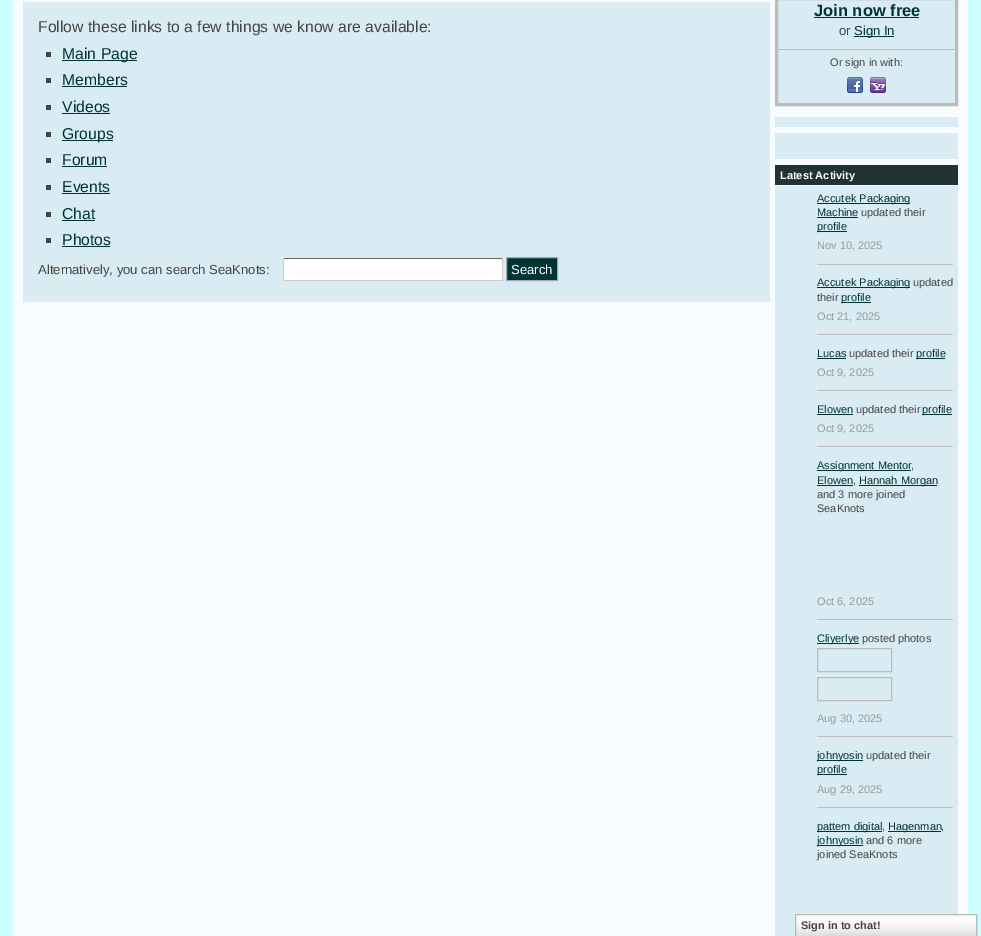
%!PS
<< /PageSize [981 936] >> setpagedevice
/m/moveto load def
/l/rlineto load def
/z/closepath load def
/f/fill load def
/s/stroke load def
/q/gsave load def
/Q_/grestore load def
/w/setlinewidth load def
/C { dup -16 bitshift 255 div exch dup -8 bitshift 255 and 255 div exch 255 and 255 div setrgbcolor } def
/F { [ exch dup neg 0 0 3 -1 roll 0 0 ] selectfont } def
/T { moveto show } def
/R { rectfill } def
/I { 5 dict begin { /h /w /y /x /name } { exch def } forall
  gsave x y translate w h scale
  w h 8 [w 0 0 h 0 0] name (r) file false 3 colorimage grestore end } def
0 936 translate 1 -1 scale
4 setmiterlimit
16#CCFFFF C
0 0 981 936 R
16#F8FCFF C
13 0 955 936 R
16#D9ECF3 C
23 2 747 300 R
/LiberationSans-Regular 15.75 F
16#444444 C
(Follow these links to a few things we know are available:) 38 32 T
46 52 5 5 R
16#003333 C
62 60 75 1 R
(Main Page) 62 59 T
16#444444 C
46 78 5 5 R
16#003333 C
(Members) 62 85 T
62 86 65 1 R
16#444444 C
46 105 5 5 R
16#003333 C
(Videos) 62 112 T
62 113 48 1 R
16#444444 C
46 132 5 5 R
16#003333 C
62 140 51 1 R
(Groups) 62 139 T
16#444444 C
46 158 5 5 R
16#003333 C
(Forum) 62 165 T
62 166 45 1 R
16#444444 C
46 185 5 5 R
16#003333 C
(Events) 62 192 T
62 193 48 1 R
16#444444 C
46 212 5 5 R
16#003333 C
(Chat) 62 219 T
62 220 33 1 R
16#444444 C
46 238 5 5 R
16#003333 C
(Photos) 62 245 T
62 246 48 1 R
/LiberationSans-Regular 13.1 F
16#444444 C
(Alternatively, you can search SeaKnots:) 38 274 T
16#FFFFFF C
284 259 218 21 R
16#666666 C
283 258 220 1 R
16#CCCCCC C
502 258 1 23 R
283 280 220 1 R
283 258 1 23 R
16#003333 C
506.5 257.5 m 51 0 l 0 23 l -51 0 l z q f Q_
16#AAAAAA C
s
16#FFFFFF C
(Search) 511 274 T
16#D9ECF3 C
776.5 -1.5 m 180 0 l 0 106 l -180 0 l z q f Q_
16#BBBBBB C
3 w
s
/LiberationSans-Bold 16.5 F
16#003333 C
(Join now free) 814 16 T
814 17 105 1 R
/LiberationSans-Regular 13.1 F
16#444444 C
(or) 839 35 T
16#003333 C
854 36 40 1 R
(Sign In) 854 35 T
16#BBBBBB C
778 49 177 1 R
/LiberationSans-Regular 11 F
16#444444 C
(Or sign in with:) 830 66 T
(1.rgb) 847 77 16 16 I
(2.rgb) 870 77 16 16 I
16#D9ECF3 C
775 117 183 10 R
775 133 183 26 R
16#223333 C
775 165 183 20 R
/LiberationSans-Bold 11 F
16#FFFFFF C
(Latest Activity) 780 179 T
16#D9ECF3 C
775 186 183 750 R
16#C0C0C0 C
817 264 136 1 R
16#003333 C
817 203 93 1 R
/LiberationSans-Regular 11 F
(Accutek Packaging) 817 202 T
(Machine) 817 216 T
817 217 41 1 R
16#444444 C
(updated their) 861 216 T
16#003333 C
817 231 30 1 R
(profile) 817 230 T
16#999999 C
(Nov 10, 2025) 817 249 T
16#C0C0C0 C
817 334 136 1 R
16#003333 C
817 287 93 1 R
(Accutek Packaging) 817 286 T
16#444444 C
(updated) 913 286 T
(their) 817 301 T
16#003333 C
841 302 30 1 R
(profile) 841 301 T
16#999999 C
(Oct 21, 2025) 817 320 T
16#C0C0C0 C
817 390 136 1 R
16#003333 C
(Lucas) 817 357 T
817 358 29 1 R
16#444444 C
(updated their) 849 357 T
16#003333 C
916 358 29 1 R
(profile) 916 357 T
16#999999 C
(Oct 9, 2025) 817 376 T
16#C0C0C0 C
817 446 136 1 R
16#003333 C
(Elowen) 817 413 T
817 414 36 1 R
16#444444 C
(updated their) 856 413 T
16#003333 C
922 414 30 1 R
(profile) 922 413 T
16#999999 C
(Oct 9, 2025) 817 432 T
16#C0C0C0 C
817 619 136 1 R
16#003333 C
817 470 94 1 R
(Assignment Mentor) 817 469 T
16#444444 C
(,) 911 469 T
16#003333 C
(Elowen) 817 484 T
16#444444 C
(,) 853 484 T
16#003333 C
817 485 36 1 R
859 485 78 1 R
(Hannah Morgan) 859 484 T
16#444444 C
(and 3 more joined) 817 498 T
(SeaKnots) 817 512 T
16#999999 C
(Oct 6, 2025) 817 605 T
16#C0C0C0 C
817 736 136 1 R
16#003333 C
817 643 42 1 R
(Cliyerlye) 817 642 T
16#444444 C
(posted photos) 862 642 T
16#BBBBBB C
1 w
817.5 648.5 74 23 rectstroke
817.5 677.5 74 23 rectstroke
16#999999 C
(Aug 30, 2025) 817 722 T
16#C0C0C0 C
817 807 136 1 R
16#003333 C
817 760 46 1 R
(johnyosin) 817 759 T
16#444444 C
(updated their) 866 759 T
16#003333 C
817 774 30 1 R
(profile) 817 773 T
16#999999 C
(Aug 29, 2025) 817 793 T
16#003333 C
817 831 65 1 R
(pattem digital) 817 830 T
16#444444 C
(,) 882 830 T
16#003333 C
888 831 53 1 R
(Hagenman) 888 830 T
16#444444 C
(,) 941 830 T
16#003333 C
817 845 46 1 R
(johnyosin) 817 844 T
16#444444 C
(and 6 more) 866 844 T
(joined SeaKnots) 817 858 T
(3.rgb) 796 915 180 21 I
16#B7B7B7 C
795.5 914.5 181 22 rectstroke
/LiberationSans-Bold 11 F
16#444444 C
(Sign in to chat!) 801 929 T
showpage
